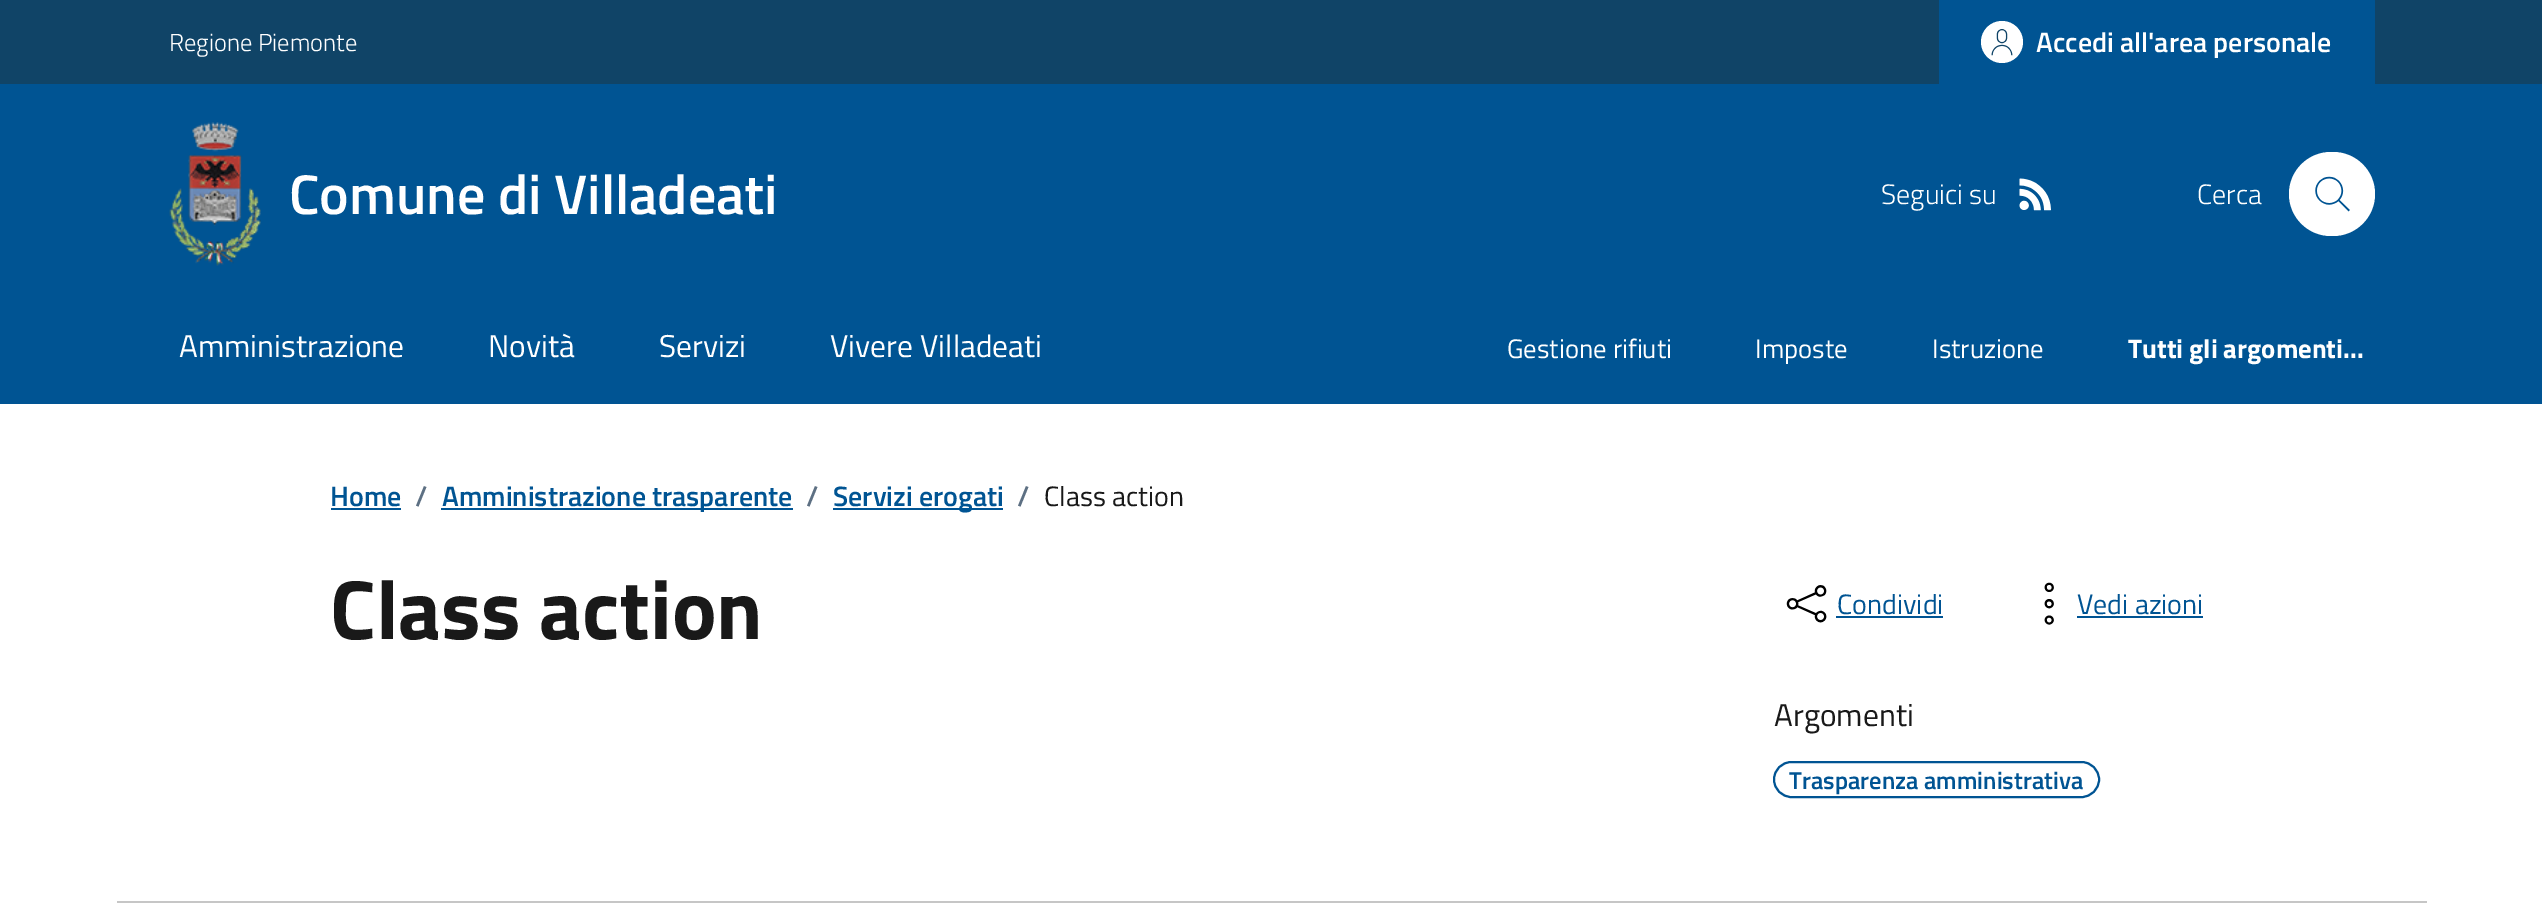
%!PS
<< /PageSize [2542 912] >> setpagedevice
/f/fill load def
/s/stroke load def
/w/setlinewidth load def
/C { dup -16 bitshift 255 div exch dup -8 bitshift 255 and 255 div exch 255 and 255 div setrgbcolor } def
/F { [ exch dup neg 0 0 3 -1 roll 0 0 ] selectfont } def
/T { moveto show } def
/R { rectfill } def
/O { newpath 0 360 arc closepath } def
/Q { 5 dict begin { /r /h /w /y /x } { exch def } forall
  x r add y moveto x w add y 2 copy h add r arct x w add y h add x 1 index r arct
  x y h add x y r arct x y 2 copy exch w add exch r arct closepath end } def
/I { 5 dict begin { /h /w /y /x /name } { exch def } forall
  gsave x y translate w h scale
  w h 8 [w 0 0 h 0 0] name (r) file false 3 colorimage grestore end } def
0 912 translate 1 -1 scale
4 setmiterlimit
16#FFFFFF C
0 0 2542 912 R
16#104467 C
0 0 2542 84 R
/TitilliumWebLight-Light 24.5 F
16#FFFFFF C
(Regione Piemonte) 169 51 T
16#005493 C
1939 0 436 84 R
16#FFFFFF C
2002 42 21 O f
(1.rgb) 1991 29 22 27 I
/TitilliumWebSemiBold-SemiBold 28 F
(Accedi all'area personale) 2036 52 T
16#005493 C
0 84 2542 320 R
(2.rgb) 169 122 92 144 I
/TitilliumWebSemiBold-SemiBold 56 F
16#FFFFFF C
(Comune di Villadeati) 289 214 T
/TitilliumWebLight-Light 28 F
(Seguici su) 1881 204 T
(3.rgb) 2019 178 32 33 I
(Cerca) 2197 204 T
2289 152 86 84 42 Q f
(4.rgb) 2315 176 35 36 I
/TitilliumWeb-Regular 31.5 F
(Amministrazione) 179 357 T
(Novità) 488 357 T
(Servizi) 659 357 T
(Vivere Villadeati) 830 357 T
/TitilliumWeb-Regular 26.75 F
(Gestione rifiuti) 1507 358 T
(Imposte) 1755 358 T
(Istruzione) 1932 358 T
/TitilliumWeb-Bold 26.75 F
(Tutti gli argomenti...) 2128 358 T
/TitilliumWebSemiBold-SemiBold 28 F
16#005493 C
(Home) 330 506 T
331 508 70 2 R
16#5D7083 C
(/) 415 506 T
16#005493 C
441 508 352 2 R
(Amministrazione trasparente) 442 506 T
16#5D7083 C
(/) 806 506 T
16#005493 C
833 508 170 2 R
(Servizi erogati) 833 506 T
16#5D7083 C
(/) 1017 506 T
/TitilliumWeb-Regular 28 F
16#191919 C
(Class action) 1044 506 T
/TitilliumWeb-Bold 84 F
(Class action) 330 639 T
(5.rgb) 1786 585 41 38 I
/TitilliumWeb-Regular 28 F
16#005493 C
(Condividi) 1837 614 T
1836 616 107 2 R
(6.rgb) 2044 582 10 43 I
(Vedi azioni) 2077 614 T
2077 616 126 2 R
/TitilliumWeb-Regular 31.5 F
16#191919 C
(Argomenti) 1774 726 T
16#005493 C
2 w
1774 762 325 35 17.5 Q s
/TitilliumWebSemiBold-SemiBold 24.5 F
(Trasparenza amministrativa) 1789 789 T
16#C6C6C6 C
117 901 2310 2 R
showpage
